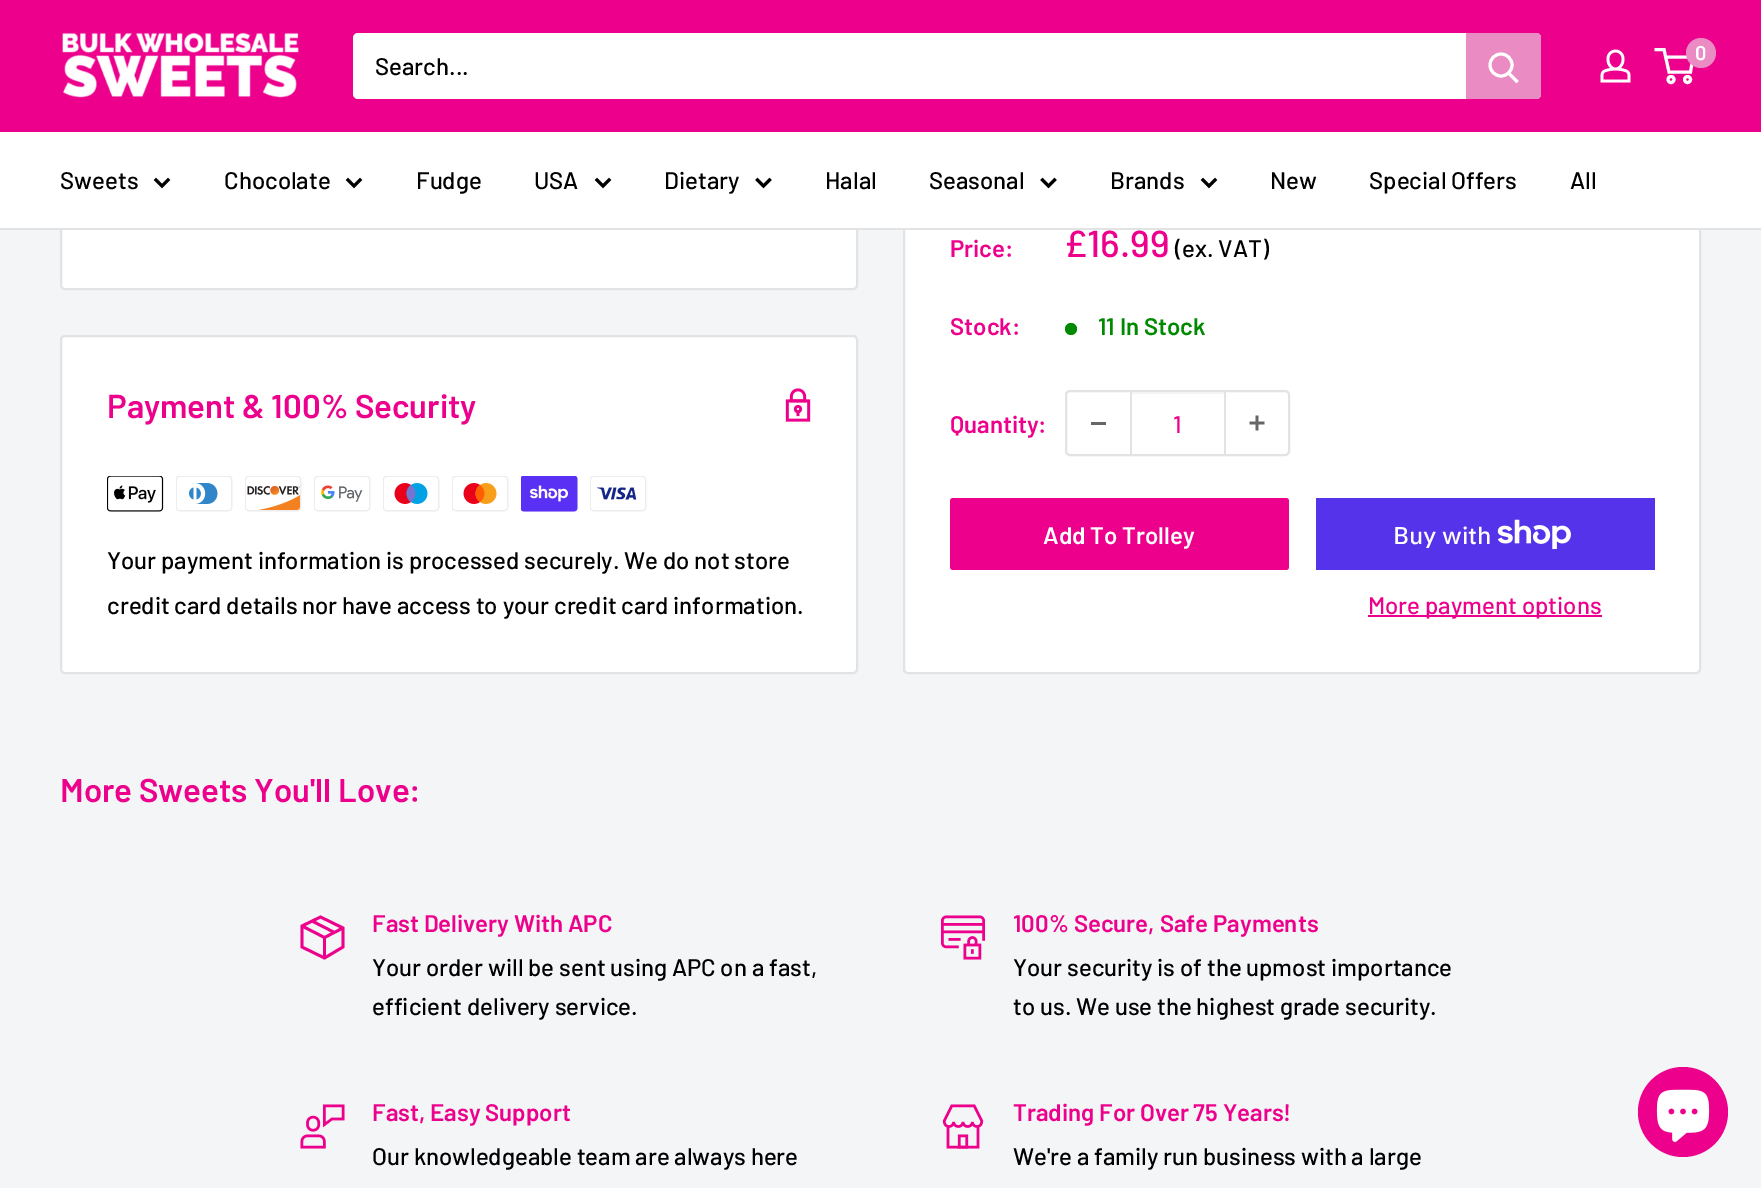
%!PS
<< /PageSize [1761 1188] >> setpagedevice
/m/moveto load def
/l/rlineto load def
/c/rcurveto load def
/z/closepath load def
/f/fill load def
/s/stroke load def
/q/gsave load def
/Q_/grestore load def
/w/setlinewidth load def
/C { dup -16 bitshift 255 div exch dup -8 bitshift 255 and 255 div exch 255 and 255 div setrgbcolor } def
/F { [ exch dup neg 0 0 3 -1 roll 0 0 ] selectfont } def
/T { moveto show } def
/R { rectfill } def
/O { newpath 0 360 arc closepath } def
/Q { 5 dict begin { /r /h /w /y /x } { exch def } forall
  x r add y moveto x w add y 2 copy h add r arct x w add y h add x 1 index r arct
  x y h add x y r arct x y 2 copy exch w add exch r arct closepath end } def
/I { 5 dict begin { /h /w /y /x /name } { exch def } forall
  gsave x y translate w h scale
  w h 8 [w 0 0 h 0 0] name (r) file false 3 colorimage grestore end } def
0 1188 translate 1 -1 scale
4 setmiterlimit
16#F3F5F6 C
0 0 1761 1188 R
16#FFFFFF C
61 -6 796 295 4 Q q f Q_
16#E1E3E4 C
2 w
s
16#FFFFFF C
904 -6 796 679 4 Q q f Q_
16#E1E3E4 C
s
16#EC008C C
0 0 1761 132 R
(1.rgb) 62 32 237 66 I
(2.rgb) 1600 49 31 34 I
16#FFFFFF C
3 w
1671 79.5 3 O s
1687.5 79.5 3 O s
1665.5 57 m 27.5 0 l -2.5 15 l -21.5 0 l -5 -22.5 l -9.5 0 l s
16#EA8BC4 C
1701 53 15 O f
/Barlow-SemiBold 20 F
16#FFFFFF C
(0) 1695 60 T
353 33 1188 66 5 Q f
/Barlow-Medium 24 F
16#000000 C
(Search...) 375 75 T
16#EA8BC4 C
1466 33 m 70 0 l 3 0 5 2 5 5 c 0 56 l 0 3 -2 5 -5 5 c -70 0 l z f
16#FFFFFF C
2 setlinecap
1516.5 81 m -7.5 -7.5 l s
0 setlinecap
1501 65 11 O s
0 132 1761 96 R
16#E1E3E4 C
0 228 1761 2 R
16#000000 C
(Sweets) 60 189 T
2 setlinecap
168 180 m -6 6 l -6 -6 l s
(Chocolate) 224 189 T
360 180 m -6 6 l -6 -6 l s
(Fudge) 416 189 T
(USA) 534 189 T
609 180 m -6 6 l -6 -6 l s
(Dietary) 664 189 T
769.5 180 m -6 6 l -6 -6 l s
(Halal) 825 189 T
(Seasonal) 929 189 T
1054.5 180 m -6 6 l -6 -6 l s
(Brands) 1110 189 T
1215 180 m -6 6 l -6 -6 l s
(New) 1270 189 T
(Special Offers) 1369 189 T
(All) 1570 189 T
16#FFFFFF C
61 336 796 337 4 Q q f Q_
16#E1E3E4 C
2 w
0 setlinecap
s
/Barlow-SemiBold 33 F
16#EC008C C
(Payment & 100% Security) 107 418 T
(3.rgb) 785 388 26 34 I
(4.rgb) 107 476 57 36 I
(5.rgb) 176 476 57 36 I
(6.rgb) 245 476 57 36 I
(7.rgb) 314 476 57 36 I
(8.rgb) 383 476 57 36 I
(9.rgb) 452 476 57 36 I
(10.rgb) 521 476 57 36 I
(11.rgb) 590 476 57 36 I
/Barlow-Medium 24 F
16#000000 C
(Your payment information is processed securely. We do not store) 107 569 T
(credit card details nor have access to your credit card information.) 107 614 T
/Barlow-SemiBold 24 F
16#EC008C C
(Price:) 950 257 T
/Barlow-Medium 37.5 F
(£16.99) 1064 257 T
/Barlow-Medium 24 F
16#000000 C
(\(ex. VAT\)) 1175 257 T
/Barlow-SemiBold 24 F
16#EC008C C
(Stock:) 950 335 T
16#008A00 C
1071 329 6 O f
(11 In Stock) 1098 335 T
16#EC008C C
(Quantity:) 950 433 T
16#E1E3E4 C
1066 391 223 64 4 Q s
16#666666 C
1091 422 15 3 R
16#F3F4F4 C
1131 392 93 2 R
16#E1E3E4 C
1224 392 2 63 R
1130 392 2 63 R
/Barlow-Medium 24 F
16#EC008C C
(1) 1173 433 T
(12.rgb) 1249 415 16 16 I
950 498 339 72 3 Q f
/Barlow-SemiBold 24 F
16#FFFFFF C
(Add To Trolley) 1043 544 T
16#5433EB C
1316 498 339 72 R
/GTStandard-Medium 24 F
16#FFFFFF C
(Buy with) 1393 544 T
(13.rgb) 1497 519 74 30 I
16#EC008C C
1368 615 234 2 R
/Barlow-Medium 24 F
(More payment options) 1368 614 T
/Barlow-SemiBold 33 F
(More Sweets You'll Love:) 60 802 T
2.8 w
312 921 m 22.5 11.5 l 343 928 m -18.5 9.5 l -22.5 -11.5 l 324.5 937.5 m 0 20.5 l s
2 setlinecap
343 928 m 0 19 l -18.5 11 l -22.5 -11 l 0 -21 l 18.5 -9 l z s
/Barlow-SemiBold 24 F
(Fast Delivery With APC) 372 932 T
/Barlow-Medium 24 F
16#000000 C
(Your order will be sent using APC on a fast,) 372 976 T
(efficient delivery service.) 372 1015 T
(14.rgb) 941 915 45 45 I
/Barlow-SemiBold 24 F
16#EC008C C
(100% Secure, Safe Payments) 1013 932 T
/Barlow-Medium 24 F
16#000000 C
(Your security is of the upmost importance) 1013 976 T
(to us. We use the highest grade security.) 1013 1015 T
(15.rgb) 300 1104 45 45 I
/Barlow-SemiBold 24 F
16#EC008C C
(Fast, Easy Support) 372 1121 T
/Barlow-Medium 24 F
16#000000 C
(Our knowledgeable team are always here) 372 1165 T
(16.rgb) 942 1104 42 45 I
/Barlow-SemiBold 24 F
16#EC008C C
(Trading For Over 75 Years!) 1013 1121 T
/Barlow-Medium 24 F
16#000000 C
(We're a family run business with a large) 1013 1165 T
16#EC008C C
1683 1112 45 O f
(17.rgb) 1656 1089 54 53 I
showpage
